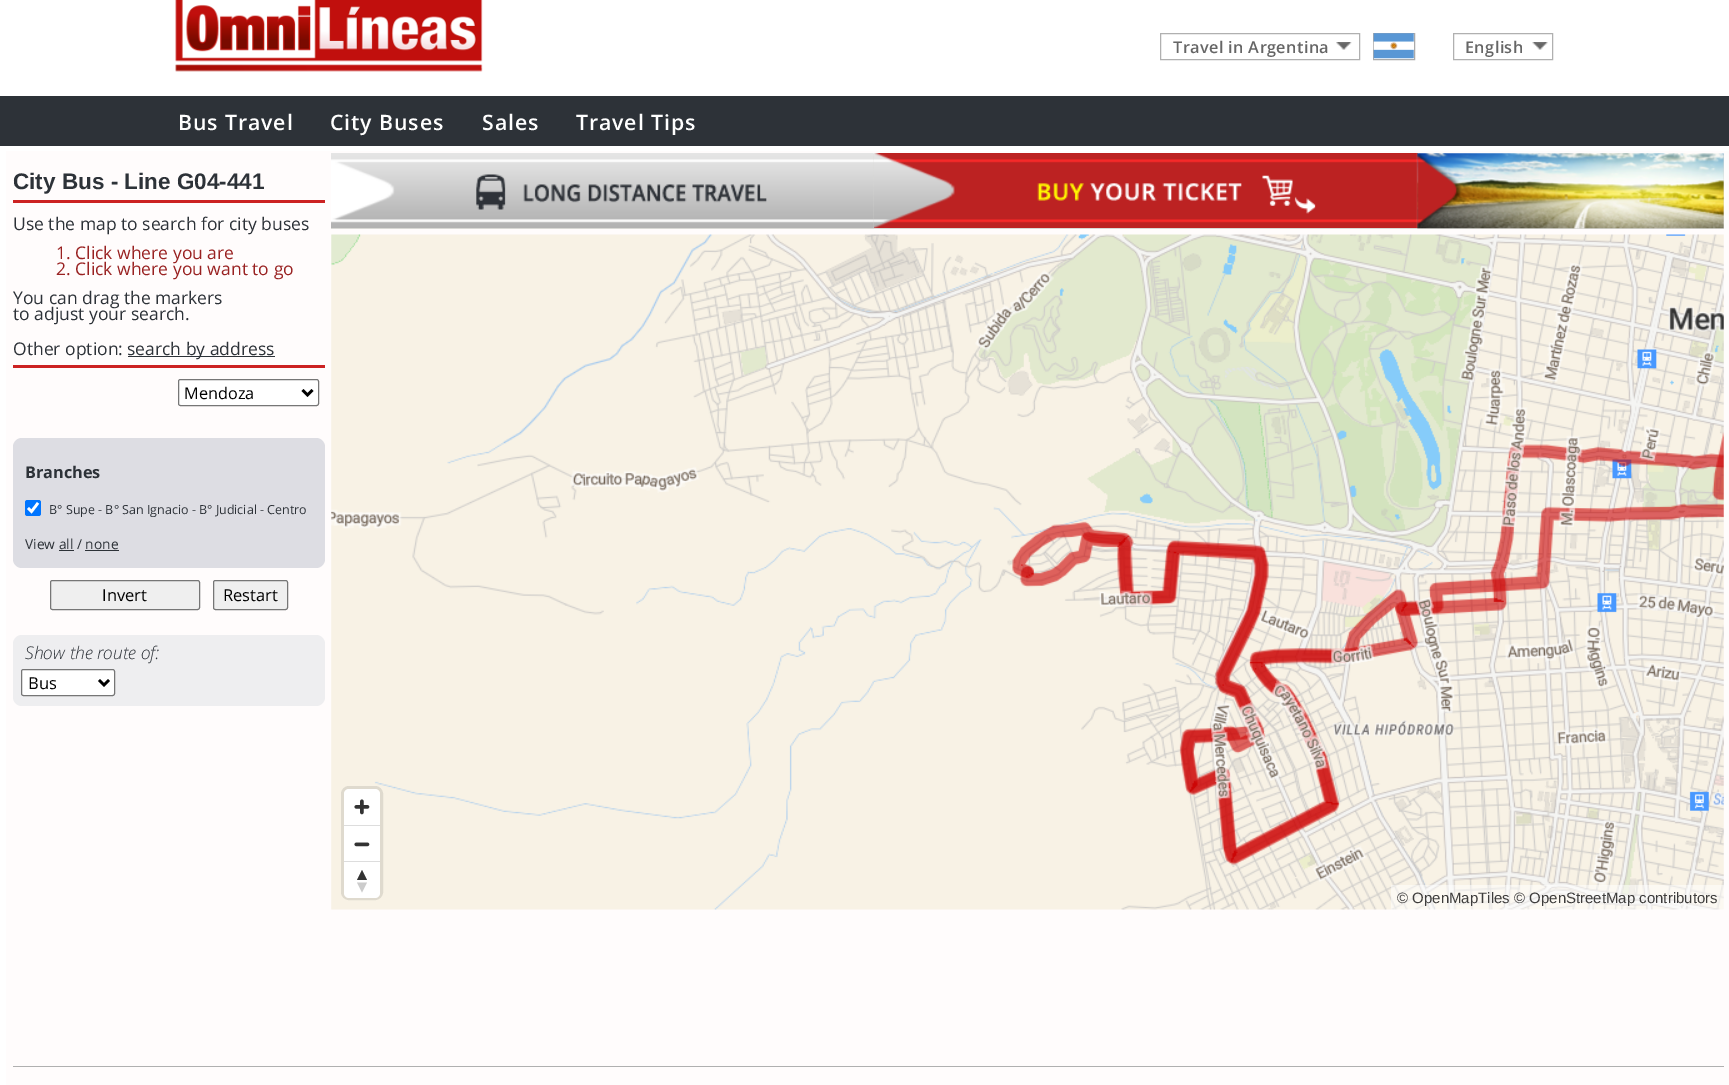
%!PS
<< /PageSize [1729 1085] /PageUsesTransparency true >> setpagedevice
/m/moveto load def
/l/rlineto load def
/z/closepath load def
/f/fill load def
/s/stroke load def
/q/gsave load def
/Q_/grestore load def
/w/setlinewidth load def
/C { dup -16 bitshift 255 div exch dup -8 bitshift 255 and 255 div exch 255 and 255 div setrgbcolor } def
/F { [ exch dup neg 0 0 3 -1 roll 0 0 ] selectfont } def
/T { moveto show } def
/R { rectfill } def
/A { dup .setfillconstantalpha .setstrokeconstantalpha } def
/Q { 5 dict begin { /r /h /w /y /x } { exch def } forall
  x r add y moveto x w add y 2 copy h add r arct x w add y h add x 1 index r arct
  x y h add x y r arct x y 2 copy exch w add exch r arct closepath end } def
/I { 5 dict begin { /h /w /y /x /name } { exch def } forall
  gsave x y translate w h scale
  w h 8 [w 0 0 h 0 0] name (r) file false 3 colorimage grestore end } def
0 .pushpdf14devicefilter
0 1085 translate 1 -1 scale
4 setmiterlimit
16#FFFFFF C
0 0 1729 1085 R
(1.rgb) 175 0 308 72 I
(2.rgb) 1336 42 16 8 I
16#B0B0B0 C
1160.5 33.5 199 26 rectstroke
/OpenSans-SemiBold 16.25 F
16#666666 C
1173 53 m .4 0 (Travel in Argentina) ashow
16#AAAAAA C
1373.5 33.5 41 26 rectstroke
(3.rgb) 1373 33 41 26 I
(4.rgb) 1532 42 16 8 I
16#B0B0B0 C
1453.5 33.5 99 26 rectstroke
16#666666 C
1465 53 m .4 0 (English) ashow
16#2D3238 C
0 96 1729 50 R
/OpenSans-SemiBold 21.25 F
16#FFFFFF C
178 130 m .9 0 (Bus Travel) ashow
330 130 m .9 0 (City Buses) ashow
482 130 m .9 0 (Sales) ashow
576 130 m .9 0 (Travel Tips) ashow
16#FFFCFC C
6 151 1723 934 R
16#CC2222 C
13 200 312 3 R
/LiberationSans-Bold 22.5 F
16#2D3238 C
(City Bus - Line G04-441) 13 189 T
/OpenSans-Regular 17.5 F
(Use the map to search for city buses) 13 230 T
16#992222 C
(1. Click where you are) 56 259 T
(2. Click where you want to go) 56 275 T
16#2D3238 C
(You can drag the markers) 13 304 T
(to adjust your search.) 13 320 T
(Other option:) 13 355 T
128 356 147 1 R
(search by address) 127 355 T
16#CC2222 C
13 365 312 3 R
16#FFFFFF C
178.5 379.5 140 26 2 Q q f Q_
16#767676 C
s
16#000000 C
2.5 w
302.5 390 m 5 5 l 5 -5 l s
/OpenSans-Regular 16.25 F
(Mendoza) 184 399 T
16#DDDDE3 C
13 438 312 130 9 Q f
/OpenSans-Bold 16.25 F
16#2D3238 C
(Branches) 25 478 T
16#0075FF C
25 500 16 16 2.5 Q f
16#FFFFFF C
2.6 w
28 508 m 3.5 3.5 l 6.5 -8.5 l s
/OpenSans-Regular 12.5 F
16#2D3238 C
(B° Supe - B° San Ignacio - B° Judicial - Centro) 49 514 T
/OpenSans-Regular 13.75 F
(View all / none) 25 549 T
59 550 15 1 R
85 550 34 1 R
16#EFEFEF C
50.5 580.5 149 29 2 Q q f Q_
16#767676 C
1 w
s
/OpenSans-Regular 16.5 F
16#000000 C
(Invert) 102 601 T
16#EFEFEF C
213.5 580.5 74 29 2 Q q f Q_
16#767676 C
s
16#000000 C
(Restart) 223 601 T
16#EEEEF0 C
13 635 312 71 9 Q f
/OpenSans-LightItalic 17.5 F
16#2D3238 C
(Show the route of:) 25 659 T
16#FFFFFF C
21.5 669.5 93 26 2 Q q f Q_
16#767676 C
s
16#000000 C
2.5 w
99 680 m 5 5 l 5 -5 l s
/OpenSans-Regular 16.5 F
(Bus) 28 689 T
16#D8D8D4 C
331 154 1393 75 R
(5.rgb) 331 153 543 75 I
(6.rgb) 476 174 291 36 I
(7.rgb) 874 153 544 75 I
(8.rgb) 1037 175 279 39 I
(9.rgb) 1417 153 307 76 I
(10.rgb) 331 234 1393 676 I
16#DFDACE C
3 w
342.5 787.5 39 111 6.5 Q s
16#FFFFFF C
344 789 36 109 5 Q f
(11.rgb) 354 799 16 16 I
16#DDDDDD C
344 825 36 1 R
(12.rgb) 354 842 16 5 I
344 861 36 1 R
16#333333 C
357 880 m 5 -10 l 5 10 l z f
16#CCCCCC C
357 882.5 m 5 10 l 5 -10 l z f
0.5 A
16#FFFFFF C
1391 885 333 25 R
/LiberationSans-Regular 15 F
1 A
16#3E3D3C C
(© OpenMapTiles) 1397 903 T
(© OpenStreetMap contributors) 1514 903 T
16#B0B0B0 C
13 1066 1711 1 R
.poppdf14devicefilter showpage
